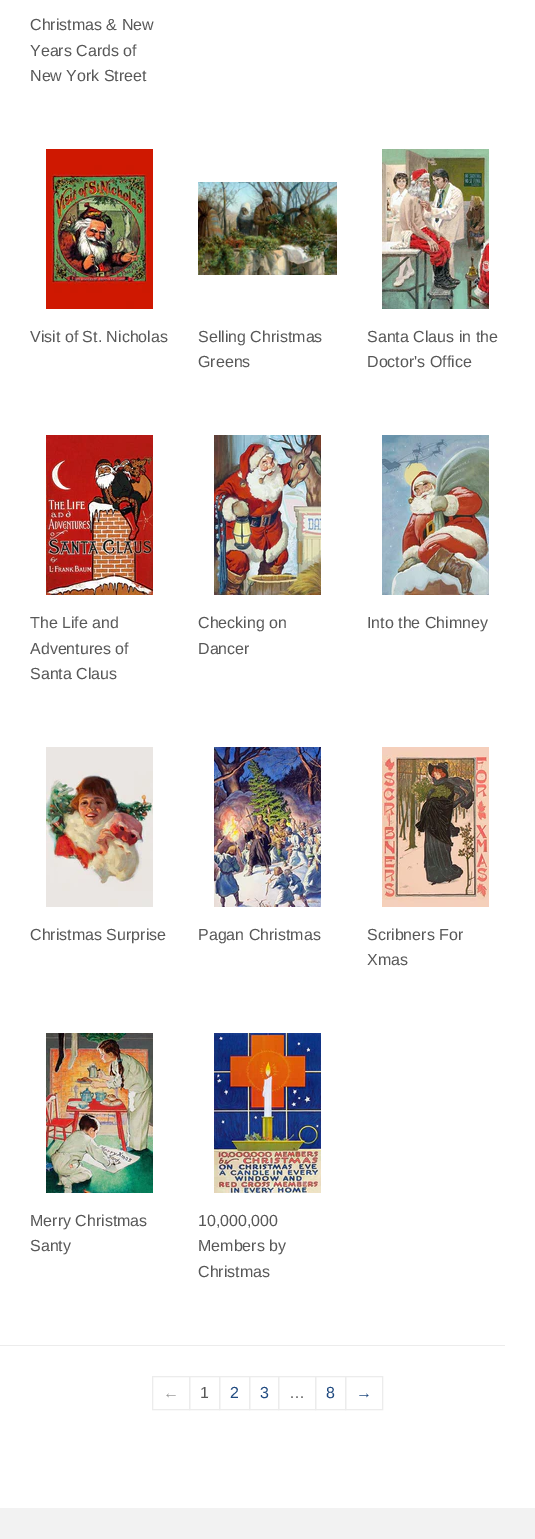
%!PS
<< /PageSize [535 1539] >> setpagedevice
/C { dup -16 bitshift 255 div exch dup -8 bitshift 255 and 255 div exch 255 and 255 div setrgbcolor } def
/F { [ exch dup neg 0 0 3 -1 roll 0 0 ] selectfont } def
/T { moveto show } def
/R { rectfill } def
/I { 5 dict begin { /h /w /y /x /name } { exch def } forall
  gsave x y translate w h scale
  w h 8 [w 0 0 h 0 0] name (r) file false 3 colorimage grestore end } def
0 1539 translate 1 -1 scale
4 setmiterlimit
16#FFFFFF C
0 0 535 1539 R
/LiberationSans-Regular 16 F
16#585858 C
(Christmas & New) 30 30 T
(Years Cards of) 30 56 T
(New York Street) 30 81 T
(1.rgb) 46 149 107 160 I
(Visit of St. Nicholas) 30 342 T
(2.rgb) 198 182 139 93 I
(Selling Christmas) 198 342 T
(Greens) 198 367 T
(3.rgb) 382 149 107 160 I
(Santa Claus in the) 367 342 T
(Doctor's Office) 367 367 T
(4.rgb) 46 435 107 160 I
(The Life and) 30 628 T
(Adventures of) 30 654 T
(Santa Claus) 30 679 T
(5.rgb) 214 435 107 160 I
(Checking on) 198 628 T
(Dancer) 198 654 T
(6.rgb) 382 435 107 160 I
(Into the Chimney) 367 628 T
(7.rgb) 46 747 107 160 I
(Christmas Surprise) 30 940 T
(8.rgb) 214 747 107 160 I
(Pagan Christmas) 198 940 T
(9.rgb) 382 747 107 160 I
(Scribners For) 367 940 T
(Xmas) 367 965 T
(10.rgb) 46 1033 107 160 I
(Merry Christmas) 30 1226 T
(Santy) 30 1251 T
(11.rgb) 214 1033 107 160 I
(10,000,000) 198 1226 T
(Members by) 198 1251 T
(Christmas) 198 1277 T
16#ECECEC C
0 1345 505 1 R
152.5 1376.5 37 33 rectstroke
16#999999 C
(←) 163 1398 T
16#ECECEC C
219.5 1376.5 30 33 rectstroke
189.5 1376.5 30 33 rectstroke
16#585858 C
(1) 200 1398 T
16#204A80 C
(2) 230 1398 T
16#ECECEC C
249.5 1376.5 29 33 rectstroke
16#204A80 C
(3) 260 1398 T
16#ECECEC C
278.5 1376.5 37 33 rectstroke
16#585858 C
(…) 289 1398 T
16#ECECEC C
315.5 1376.5 30 33 rectstroke
16#204A80 C
(8) 326 1398 T
16#ECECEC C
345.5 1376.5 37 33 rectstroke
16#204A80 C
(→) 356 1398 T
16#F2F2F2 C
0 1508 535 31 R
showpage
